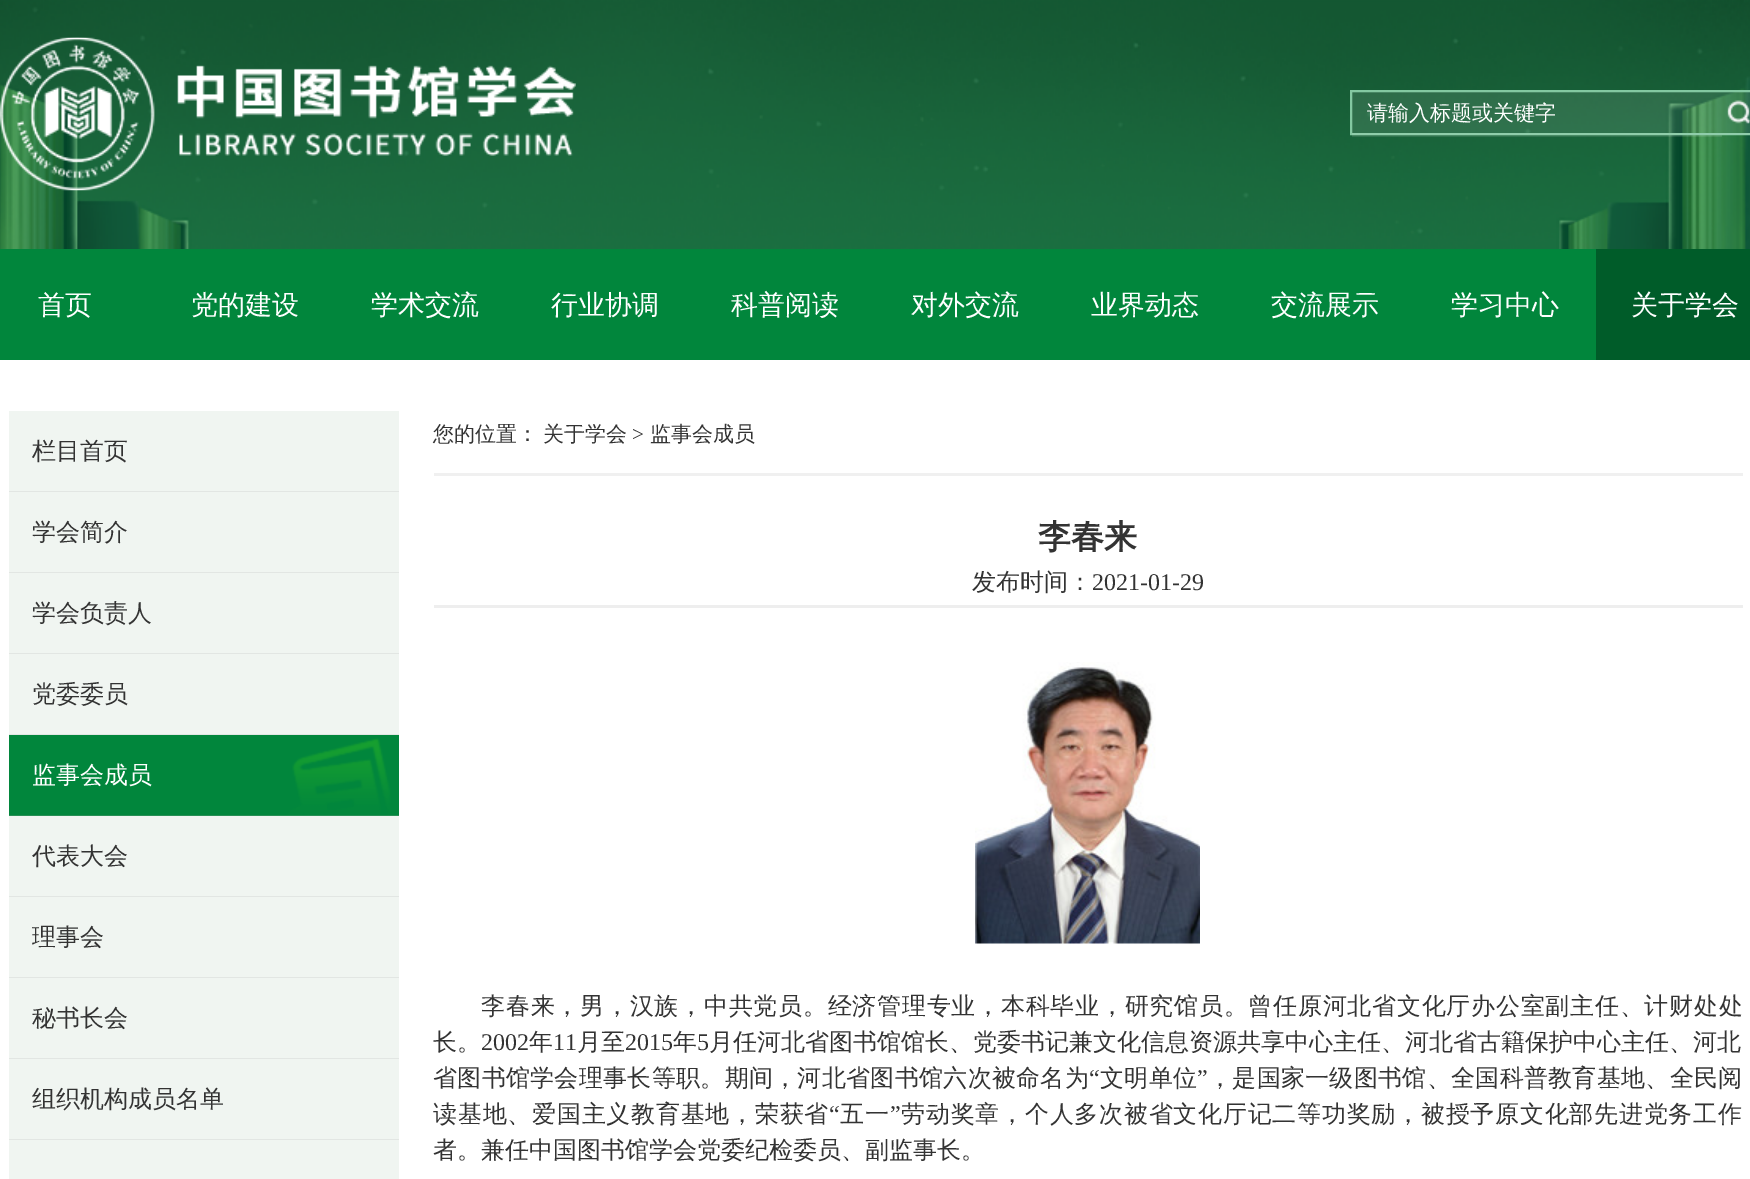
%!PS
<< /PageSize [1750 1179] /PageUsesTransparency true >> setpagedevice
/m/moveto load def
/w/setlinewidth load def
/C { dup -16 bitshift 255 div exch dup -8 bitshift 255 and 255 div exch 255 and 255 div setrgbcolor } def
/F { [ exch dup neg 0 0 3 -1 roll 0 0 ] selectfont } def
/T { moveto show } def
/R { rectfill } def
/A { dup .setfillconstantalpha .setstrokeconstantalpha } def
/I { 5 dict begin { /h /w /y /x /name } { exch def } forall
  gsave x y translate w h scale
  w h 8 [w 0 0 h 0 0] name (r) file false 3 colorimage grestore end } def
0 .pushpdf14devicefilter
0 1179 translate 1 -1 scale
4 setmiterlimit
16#FFFFFF C
0 0 1750 1179 R
(1.rgb) 0 0 1750 2 I
(2.rgb) 0 0 1750 249 I
(3.rgb) 0 37 576 154 I
16#83C8A1 C
2 w
1351 91 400 43 rectstroke
0.1 A
16#F5F5F5 C
1352 92 370 45 R
/WenQuanYiZenHei-Medium 21 F
1 A
16#FFFFFF C
(请输入标题或关键字) 1367 120 T
0.1 A
16#F5F5F5 C
1722 92 28 43 R
1 A
(4.rgb) 1727 100 23 24 I
16#01863C C
0 249 1596 111 R
/WenQuanYiZenHei-Medium 27 F
16#FFFFFF C
(首页) 38 314 T
(党的建设) 191 314 T
(学术交流) 371 314 T
(行业协调) 551 314 T
(科普阅读) 731 314 T
(对外交流) 911 314 T
(业界动态) 1091 314 T
(交流展示) 1271 314 T
(学习中心) 1451 314 T
16#005C29 C
1596 249 154 111 R
16#FFFFFF C
(关于学会) 1631 314 T
16#F0F5F1 C
9 411 390 80 R
16#E2E6E3 C
9 491 390 1 R
/WenQuanYiZenHei-Medium 24 F
16#333333 C
(栏目首页) 32 459 T
16#F0F5F1 C
9 492 390 80 R
16#E2E6E3 C
9 572 390 1 R
16#333333 C
(学会简介) 32 540 T
16#F0F5F1 C
9 573 390 80 R
16#E2E6E3 C
9 653 390 1 R
16#333333 C
(学会负责人) 32 621 T
16#F0F5F1 C
9 654 390 80 R
16#E2E6E3 C
9 734 390 1 R
16#333333 C
(党委委员) 32 702 T
(5.rgb) 9 735 390 81 I
0.06 A
16#020000 C
9 815 390 1 R
1 A
16#FFFFFF C
(监事会成员) 32 783 T
16#F0F5F1 C
9 816 390 80 R
16#E2E6E3 C
9 896 390 1 R
16#333333 C
(代表大会) 32 864 T
16#F0F5F1 C
9 897 390 80 R
16#E2E6E3 C
9 977 390 1 R
16#333333 C
(理事会) 32 945 T
16#F0F5F1 C
9 978 390 80 R
16#E2E6E3 C
9 1058 390 1 R
16#333333 C
(秘书长会) 32 1026 T
16#F0F5F1 C
9 1059 390 80 R
16#E2E6E3 C
9 1139 390 1 R
16#333333 C
(组织机构成员名单) 32 1107 T
16#F0F5F1 C
9 1140 390 39 R
/WenQuanYiZenHei-Medium 21 F
16#333333 C
(您的位置：) 433 441 T
(关于学会) 543 441 T
/LiberationSerif-Regular 21 F
(>) 632 441 T
/WenQuanYiZenHei-Medium 21 F
(监事会成员) 650 441 T
16#F0F0F0 C
434 473 1309 3 R
/WenQuanYiZenHei-Bold 33 F
16#333333 C
(李春来) 1038 548 T
/WenQuanYiZenHei-Medium 24 F
(发布时间：) 972 590 T
/LiberationSerif-Regular 24 F
(2021-01-29) 1092 590 T
16#EEEEEE C
434 605 1309 3 R
(6.rgb) 975 662 225 282 I
/WenQuanYiZenHei-Medium 24 F
16#333333 C
481 1014 m .75 0 (李春来，男，汉族，中共党员。经济管理专业，本科毕业，研究馆员。曾任原河北省文化厅办公室副主任、计财处处) ashow
(长。) 433 1050 T
/LiberationSerif-Regular 24 F
(2002) 481 1050 T
/WenQuanYiZenHei-Medium 24 F
(年) 529 1050 T
/LiberationSerif-Regular 24 F
(11) 553 1050 T
/WenQuanYiZenHei-Medium 24 F
(月至) 577 1050 T
/LiberationSerif-Regular 24 F
(2015) 625 1050 T
/WenQuanYiZenHei-Medium 24 F
(年) 673 1050 T
/LiberationSerif-Regular 24 F
(5) 697 1050 T
/WenQuanYiZenHei-Medium 24 F
(月任河北省图书馆馆长、党委书记兼文化信息资源共享中心主任、河北省古籍保护中心主任、河北) 709 1050 T
433 1086 m .3 0 (省图书馆学会理事长等职。期间，河北省图书馆六次被命名为) ashow
/LiberationSerif-Regular 24 F
1089 1086 m .3 0 (“) ashow
/WenQuanYiZenHei-Medium 24 F
1100 1086 m .3 0 (文明单位) ashow
/LiberationSerif-Regular 24 F
1197 1086 m .3 0 (”) ashow
/WenQuanYiZenHei-Medium 24 F
1208 1086 m .3 0 (，是国家一级图书馆、全国科普教育基地、全民阅) ashow
433 1122 m .75 0 (读基地、爱国主义教育基地，荣获省) ashow
/LiberationSerif-Regular 24 F
829 1122 m .75 0 (“) ashow
/WenQuanYiZenHei-Medium 24 F
840 1122 m .75 0 (五一) ashow
/LiberationSerif-Regular 24 F
890 1122 m .75 0 (”) ashow
/WenQuanYiZenHei-Medium 24 F
901 1122 m .75 0 (劳动奖章，个人多次被省文化厅记二等功奖励，被授予原文化部先进党务工作) ashow
(者。兼任中国图书馆学会党委纪检委员、副监事长。) 433 1158 T
.poppdf14devicefilter showpage
